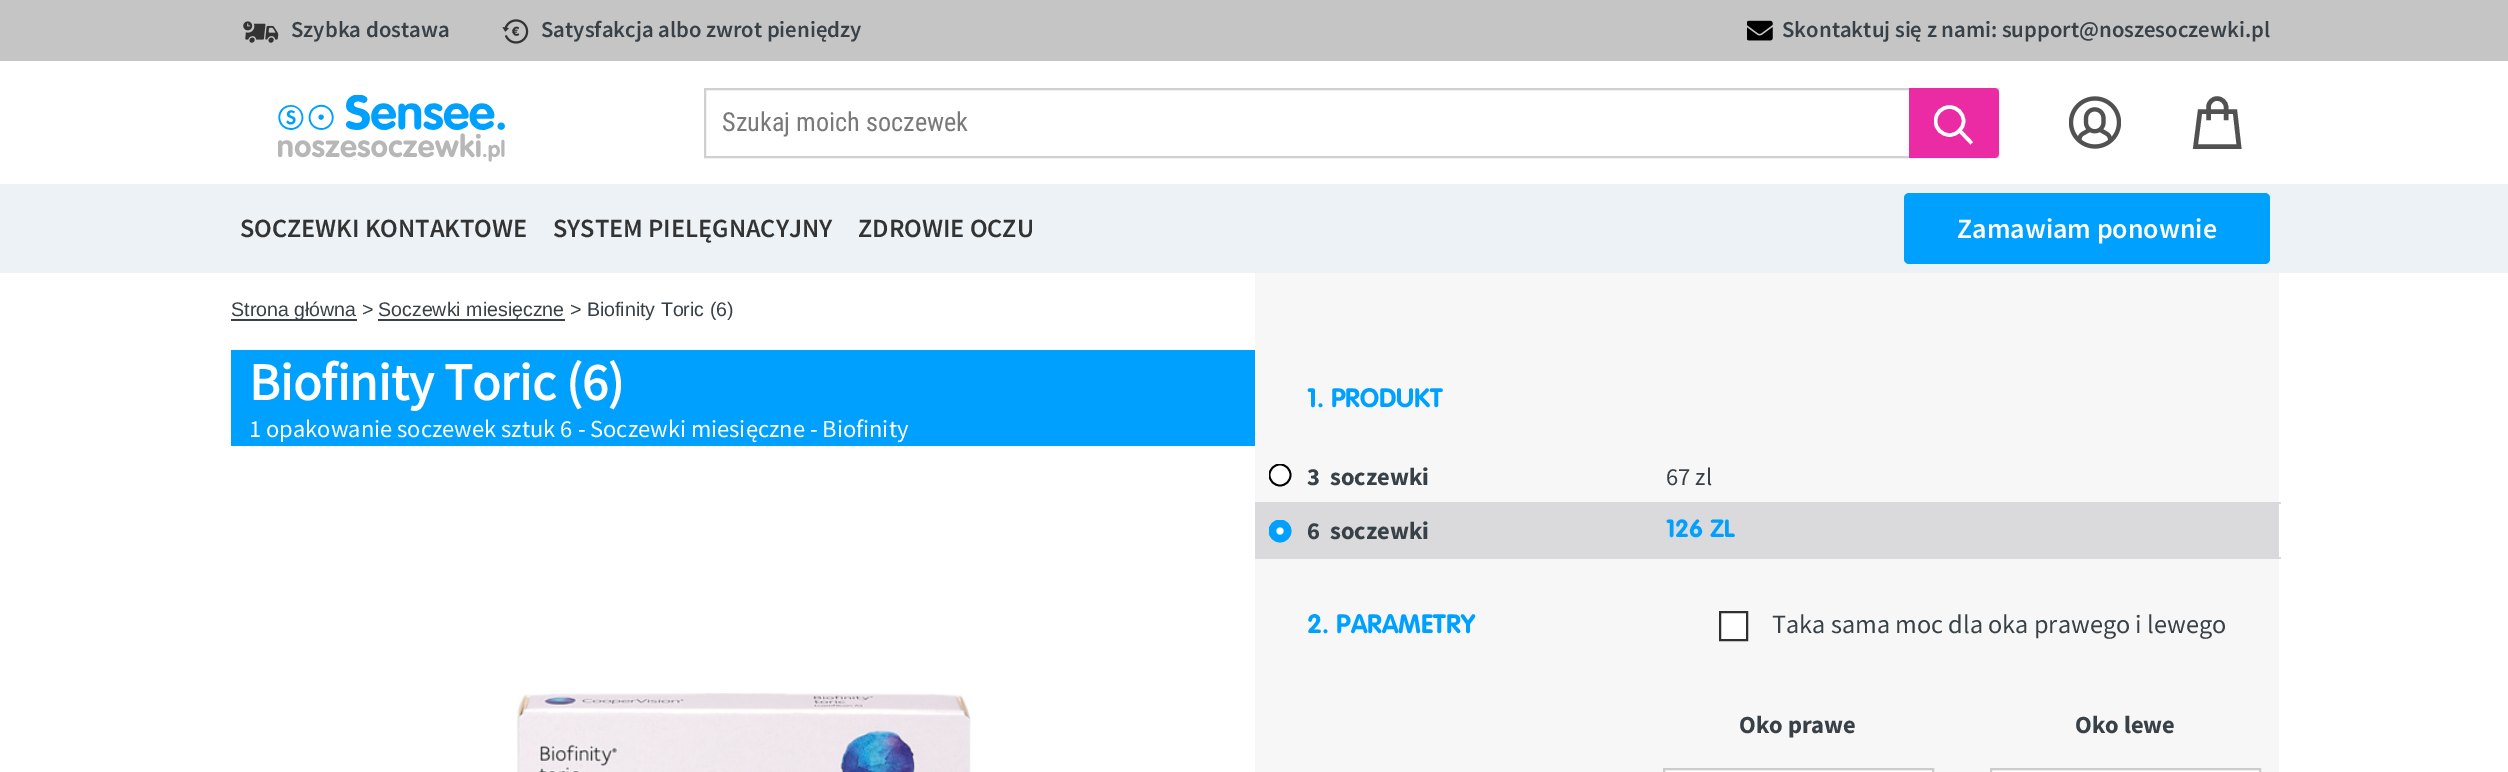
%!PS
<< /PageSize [2508 772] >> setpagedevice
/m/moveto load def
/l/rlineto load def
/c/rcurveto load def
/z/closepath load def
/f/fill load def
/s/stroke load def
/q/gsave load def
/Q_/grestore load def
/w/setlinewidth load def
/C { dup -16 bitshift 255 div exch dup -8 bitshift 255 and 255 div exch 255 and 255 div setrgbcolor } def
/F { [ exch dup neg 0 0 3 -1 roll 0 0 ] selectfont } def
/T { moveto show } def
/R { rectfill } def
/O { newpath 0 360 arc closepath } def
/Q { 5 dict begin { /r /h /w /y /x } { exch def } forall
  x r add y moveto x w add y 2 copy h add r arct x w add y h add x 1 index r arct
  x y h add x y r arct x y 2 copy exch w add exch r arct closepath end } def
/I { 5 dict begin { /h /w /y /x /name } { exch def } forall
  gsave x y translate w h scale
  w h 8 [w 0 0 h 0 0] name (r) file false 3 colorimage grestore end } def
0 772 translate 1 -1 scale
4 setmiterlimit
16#FFFFFF C
0 0 2508 772 R
16#C5C5C5 C
0 0 2508 61 R
(1.rgb) 243 21 36 22 I
/SourceSansPro-SemiBold 22.75 F
16#384147 C
(Szybka dostawa) 291 37 T
(2.rgb) 502 19 27 25 I
(Satysfakcja albo zwrot pieniędzy) 541 37 T
(3.rgb) 1747 20 26 21 I
(Skontaktuj się z nami: support@noszesoczewki.pl) 1782 37 T
16#ECF2F6 C
0 184 2508 89 R
(4.rgb) 278 95 227 67 I
16#D0D0D0 C
2 w
705 89 1293 68 rectstroke
/RobotoCondensed-Regular 26.25 F
16#7A7A7A C
(Szukaj moich soczewek) 722 131 T
16#EB2BA4 C
1909 88 m 85 0 l 3 0 5 2 5 5 c 0 60 l 0 3 -2 5 -5 5 c -85 0 l z f
16#FFFFFF C
3.5 w
2 setlinecap
1970.5 142 m -11 -11.5 l s
q
1934 105 40 40 rectclip
0 setlinecap
1949.5 121 14 O s
Q_
(5.rgb) 2069 96 52 53 I
16#515151 C
4.4 w
2239 146.5 m -43.5 0 l 4.5 -35 l 35 0 l z 2208.5 118 m 0 -11 l 0 -4.5 4 -8.5 8.5 -8.5 c 5 0 9 4 9 8.5 c 0 11 l s
/SourceSansPro-SemiBold 26.25 F
16#333333 C
(SOCZEWKI KONTAKTOWE) 240 237 T
(SYSTEM PIELĘGNACYJNY) 553 237 T
(ZDROWIE OCZU) 858 237 T
16#00A0FF C
1904 193 366 71 5 Q f
/SourceSansPro-SemiBold 28 F
16#FFFFFF C
(Zamawiam ponownie) 1957 238 T
16#384147 C
231 319 126 2 R
/LiberationSans-Regular 19.6 F
(Strona główna >) 231 316 T
378 319 187 2 R
(Soczewki miesięczne > Biofinity Toric \(6\)) 378 316 T
16#00A0FF C
231 350 1024 96 R
/SourceSansPro-Bold 52.5 F
16#FFFFFF C
(Biofinity Toric \(6\)) 249 400 T
/SourceSansPro-Regular 24.5 F
(1 opakowanie soczewek sztuk 6 - Soczewki miesięczne - Biofinity) 249 437 T
(6.rgb) 517 693 454 79 I
16#F7F7F7 C
1255 273 1024 499 R
/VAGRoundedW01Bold-Bold 26.25 F
16#00A0FF C
(1. PRODUKT) 1307 407 T
16#FFFFFF C
1280 475 10.5 O f
q
1269 464 26 26 rectclip
16#000000 C
1.8 w
0 setlinecap
1280 475 10.5 O s
Q_
/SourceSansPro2-Bold 24.5 F
16#384147 C
(3) 1307 485 T
(soczewki) 1330 485 T
/SourceSansPro-Regular 24.5 F
(67 zl) 1666 485 T
16#DADADC C
2279 502 2 2 R
1255 502 1024 55 R
16#00A0FF C
1280 531 10.5 O f
q
1269 520 26 26 rectclip
1.8 w
0 setlinecap
1280 531 10.5 O s
Q_
16#FFFFFF C
1280 531 3.5 O f
/SourceSansPro2-Bold 24.5 F
16#384147 C
(6) 1307 539 T
(soczewki) 1330 539 T
/VAGRoundedW01Bold-Bold 24.5 F
16#00A0FF C
(126 ZL) 1666 537 T
16#DADADC C
1255 557 1026 2 R
/VAGRoundedW01Bold-Bold 26.25 F
16#00A0FF C
(2. PARAMETRY) 1307 633 T
16#FFFFFF C
1720 612 m 27 0 l 0 28 l -27 0 l z q f Q_
16#303030 C
2 w
0 setlinecap
s
/SourceSansPro-Regular 26.25 F
16#384147 C
(Taka sama moc dla oka prawego i lewego) 1772 633 T
/SourceSansPro2-Bold 24.5 F
(Oko prawe) 1739 733 T
16#FFFFFF C
1664 769 m 269 0 l 0 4 l -269 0 l z q f Q_
16#CCCCCC C
s
16#384147 C
(Oko lewe) 2075 733 T
16#FFFFFF C
1991 769 m 269 0 l 0 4 l -269 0 l z q f Q_
16#CCCCCC C
s
showpage
